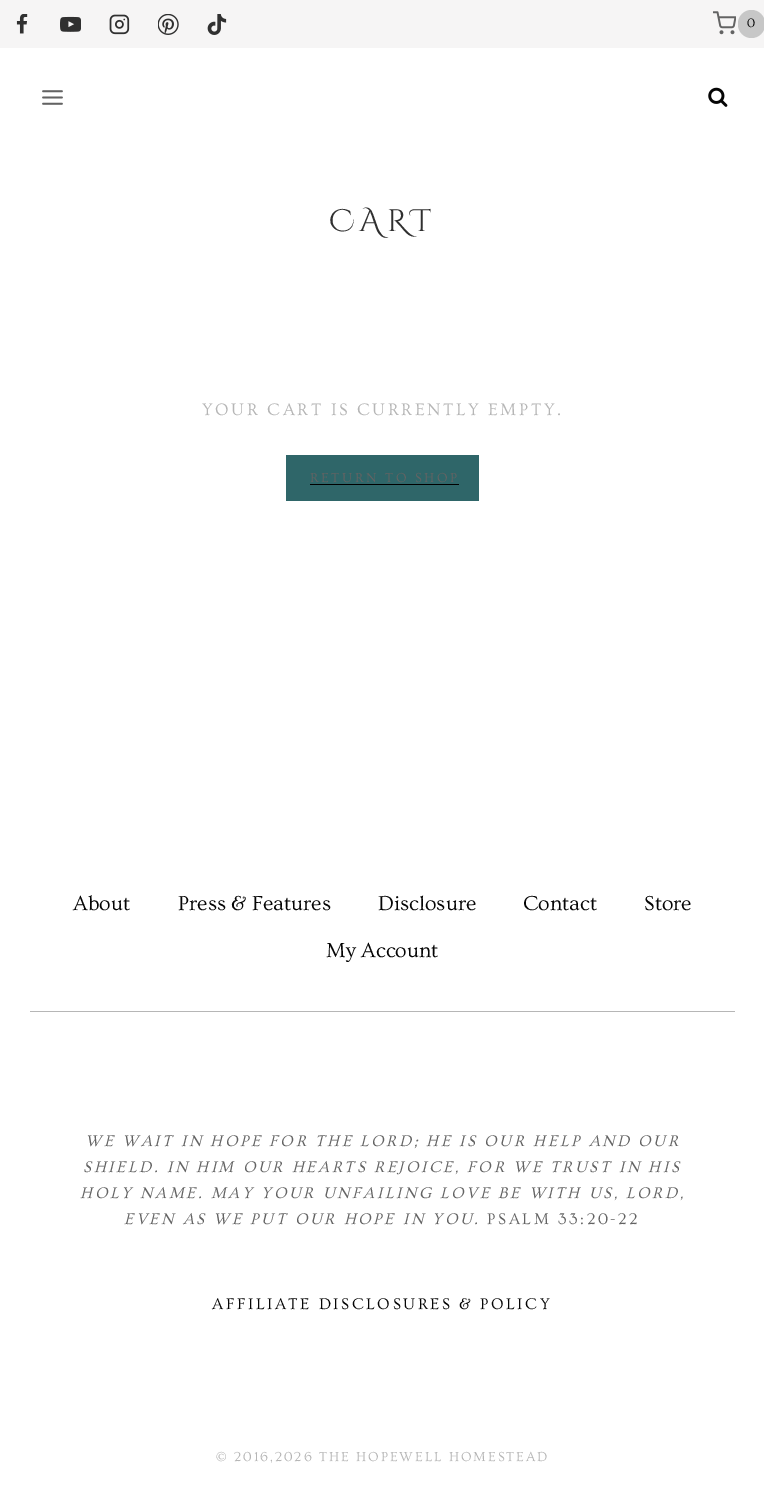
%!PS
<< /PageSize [764 1490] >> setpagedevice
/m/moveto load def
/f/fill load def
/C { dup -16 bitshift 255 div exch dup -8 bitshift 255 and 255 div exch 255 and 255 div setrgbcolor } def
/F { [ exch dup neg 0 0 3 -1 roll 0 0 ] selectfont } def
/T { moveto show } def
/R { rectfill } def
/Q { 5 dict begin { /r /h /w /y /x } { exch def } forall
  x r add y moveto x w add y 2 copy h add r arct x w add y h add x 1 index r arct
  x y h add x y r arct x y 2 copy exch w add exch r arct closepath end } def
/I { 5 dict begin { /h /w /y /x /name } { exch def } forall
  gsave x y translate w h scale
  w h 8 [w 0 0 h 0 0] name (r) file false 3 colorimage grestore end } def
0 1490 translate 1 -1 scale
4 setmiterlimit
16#FFFFFF C
0 0 764 1490 R
16#F6F5F5 C
0 0 764 48 R
(1.rgb) 16 14 12 20 I
(2.rgb) 60 16 21 16 I
(3.rgb) 109 14 21 21 I
(4.rgb) 158 14 21 21 I
(5.rgb) 207 14 20 21 I
(6.rgb) 713 11 23 24 I
16#C7C7C7 C
738 10 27 28 13.5 Q f
/Ovo-Regular 13 F
16#050505 C
(0) 747 27 T
(7.rgb) 42 90 21 15 I
(8.rgb) 708 87 20 20 I
/CinzelDecorative-Regular 31 F
16#303030 C
329 231 m 5 0 (CART) ashow
/Ovo-Regular 17.5 F
16#B6B6B6 C
202 415 m 2.5 0 (YOUR CART IS CURRENTLY EMPTY.) ashow
16#2F6669 C
286 455 193 46 R
/Ovo-Regular 13.75 F
16#636363 C
310 482 m 2.5 0 (RETURN TO SHOP) ashow
16#000000 C
310 484 149 1 R
/Ovo-Regular 21.25 F
16#050505 C
(About) 73 910 T
(Press & Features) 178 910 T
(Disclosure) 378 910 T
(Contact) 523 910 T
(Store) 644 910 T
(My Account) 326 957 T
16#B6B6B6 C
30 1011 705 1 R
/Ovo-Italic 16.25 F
16#636363 C
85 1146 m 2.5 0 (WE WAIT IN HOPE FOR THE LORD; HE IS OUR HELP AND OUR) ashow
83 1172 m 2.5 0 (SHIELD. IN HIM OUR HEARTS REJOICE, FOR WE TRUST IN HIS) ashow
80 1198 m 2.5 0 (HOLY NAME. MAY YOUR UNFAILING LOVE BE WITH US, LORD,) ashow
124 1224 m 2.5 0 (EVEN AS WE PUT OUR HOPE IN YOU.) ashow
/Ovo-Regular 16.25 F
487 1224 m 2.5 0 (PSALM 33:20-22) ashow
16#050505 C
212 1309 m 2.5 0 (AFFILIATE DISCLOSURES & POLICY) ashow
/Ovo-Regular 13.75 F
16#B6B6B6 C
216 1461 m 1.9 0 (© 2016,2026 THE HOPEWELL HOMESTEAD) ashow
showpage
